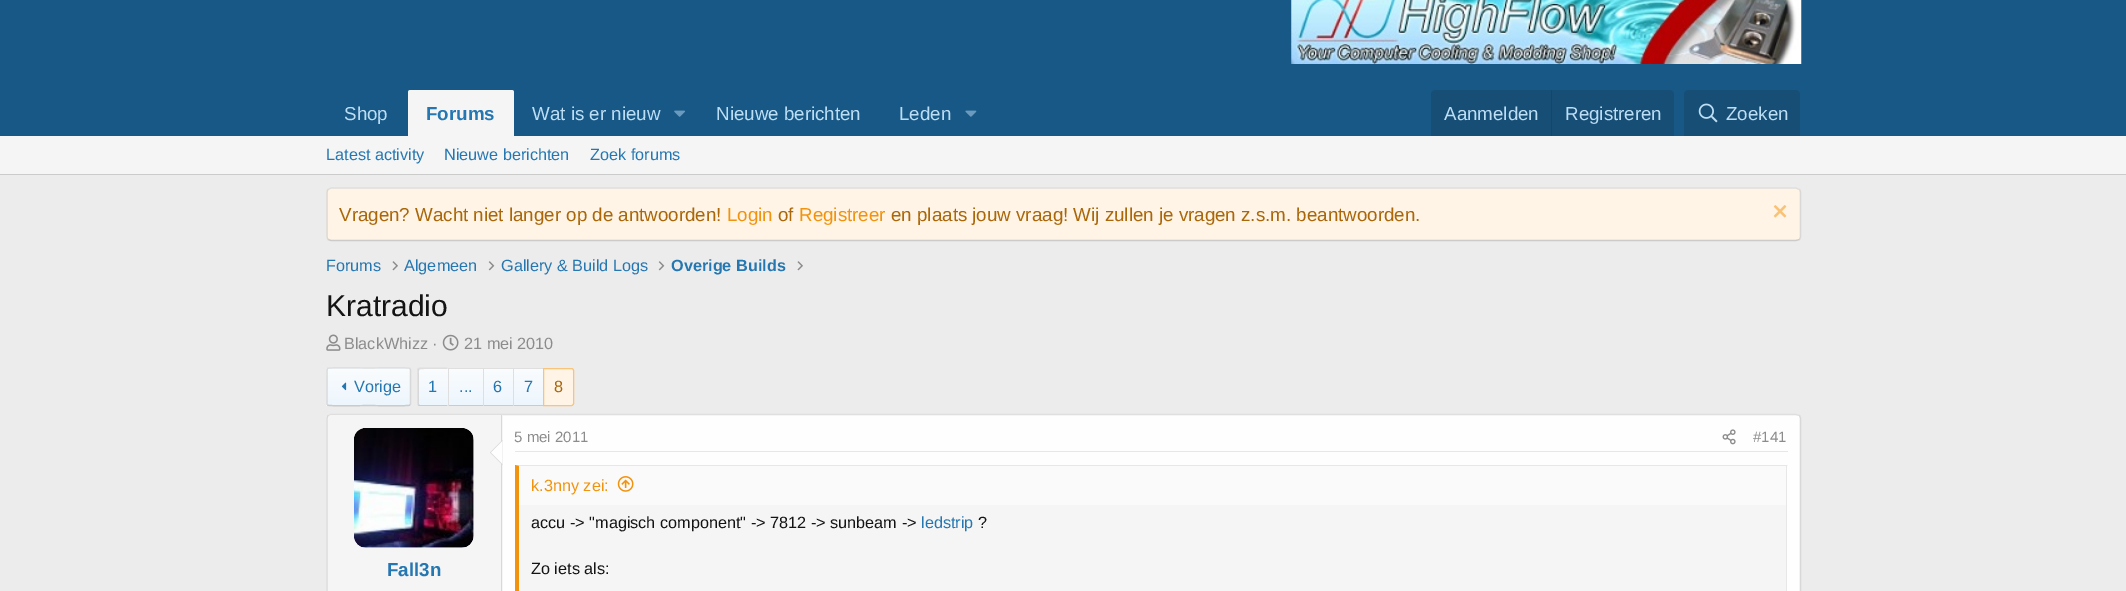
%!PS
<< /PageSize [2126 591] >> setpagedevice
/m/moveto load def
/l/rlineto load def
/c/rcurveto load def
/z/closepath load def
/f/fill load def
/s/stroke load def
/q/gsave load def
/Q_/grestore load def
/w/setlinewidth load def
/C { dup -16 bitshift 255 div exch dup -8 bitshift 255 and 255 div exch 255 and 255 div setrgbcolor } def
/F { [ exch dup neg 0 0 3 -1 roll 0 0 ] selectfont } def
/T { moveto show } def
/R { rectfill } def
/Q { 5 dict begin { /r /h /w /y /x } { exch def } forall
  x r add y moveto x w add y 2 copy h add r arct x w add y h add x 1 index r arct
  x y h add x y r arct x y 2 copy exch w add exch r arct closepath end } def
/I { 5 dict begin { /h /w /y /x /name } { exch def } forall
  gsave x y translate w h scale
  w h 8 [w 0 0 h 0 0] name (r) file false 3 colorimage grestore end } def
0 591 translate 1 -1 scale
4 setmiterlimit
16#ECECEC C
0 0 2126 591 R
16#185886 C
0 0 2126 136 R
(1.rgb) 1291 0 511 64 I
/LiberationSans-Regular 18.75 F
16#BCDEF5 C
(Shop) 344 120 T
16#F5F5F5 C
410.5 90 m 101 0 l 1.5 0 2.5 1 2.5 2.5 c 0 43.5 l -106 0 l 0 -43.5 l 0 -1.5 1 -2.5 2.5 -2.5 c z f
/LiberationSans-Bold 18.75 F
16#2577B1 C
(Forums) 426 120 T
/LiberationSans-Regular 18.75 F
16#BCDEF5 C
(Wat is er nieuw) 532 120 T
(2.rgb) 674 110 11 7 I
(Nieuwe berichten) 716 120 T
(Leden) 899 120 T
(3.rgb) 965 110 12 7 I
16#174E75 C
1436 90 m 233 0 l 3 0 5 2 5 5 c 0 41 l -243 0 l 0 -41 l 0 -3 2 -5 5 -5 c z f
16#BCDEF5 C
(Aanmelden) 1444 120 T
16#174566 C
1551 90 1 46 R
16#BCDEF5 C
(Registreren) 1565 120 T
16#174E75 C
1689 90 m 106 0 l 3 0 5 2 5 5 c 0 41 l -116 0 l 0 -41 l 0 -3 2 -5 5 -5 c z f
(4.rgb) 1698 103 20 20 I
16#BCDEF5 C
(Zoeken) 1726 120 T
16#F5F5F5 C
0 136 2126 38 R
16#CBCBCB C
0 174 2126 1 R
/LiberationSans-Regular 16.25 F
16#2577B1 C
(Latest activity) 326 160 T
(Nieuwe berichten) 444 160 T
(Zoek forums) 590 160 T
16#FFF4E5 C
326 188 1475 53 5 Q f
16#DFDFDF C
1.2 w
328 189.5 m 3 -1.5 l 1465 0 l 3.5 1.5 l s
16#D8D8D8 C
1799.5 189.5 m .5 .5 1 2 1 3 c 0 43.5 l 0 1.5 -.5 2.5 -1 3.5 c s
16#CBCBCB C
1799.5 239.5 m -3.5 1 l -1465 0 l -3 -1 l s
16#D8D8D8 C
328 239.5 m -.5 -1 -1 -2 -1 -3.5 c 0 -43.5 l 0 -1 .5 -2.5 1 -3 c s
/LiberationSans-Regular 18.75 F
16#AA6709 C
(Vragen? Wacht niet langer op de antwoorden!) 339 221 T
16#F2930D C
(Login) 727 221 T
16#AA6709 C
(of) 778 221 T
16#F2930D C
(Registreer) 799 221 T
16#AA6709 C
(en plaats jouw vraag! Wij zullen je vragen z.s.m. beantwoorden.) 891 221 T
(5.rgb) 1773 205 14 13 I
/LiberationSans-Regular 16.25 F
16#2577B1 C
(Forums) 326 271 T
(6.rgb) 392 261 6 10 I
(Algemeen) 404 271 T
(7.rgb) 488 261 7 10 I
(Gallery & Build Logs) 501 271 T
(7.rgb) 658 261 7 10 I
/LiberationSans-Bold 16.25 F
(Overige Builds) 671 271 T
(6.rgb) 797 261 6 10 I
/LiberationSans-Regular 30 F
16#141414 C
(Kratradio) 326 316 T
(8.rgb) 326 334 15 17 I
/LiberationSans-Regular 16.25 F
16#8C8C8C C
(BlackWhizz ·) 344 349 T
(9.rgb) 442 334 17 17 I
(21 mei 2010) 464 349 T
q
326 368 85 38 2.5 Q clip newpath
q 326 368 m 85 0 l 0 1 l -85 0 l z clip newpath
<< /ShadingType 2 /ColorSpace /DeviceRGB /Coords [369 369 369 333] /Extend [true true] /Function << /FunctionType 2 /Domain [0 1] /C0 [.929 .965 .992] /C1 [.98 .988 .996] /N 1 >> >> shfill Q_
q 326 369 m 85 0 l 0 36 l -85 0 l z clip newpath
<< /ShadingType 2 /ColorSpace /DeviceRGB /Coords [369 405 369 369] /Extend [true true] /Function << /FunctionType 2 /Domain [0 1] /C0 [.929 .965 .992] /C1 [.98 .988 .996] /N 1 >> >> shfill Q_
q 326 405 m 85 0 l 0 1 l -85 0 l z clip newpath
<< /ShadingType 2 /ColorSpace /DeviceRGB /Coords [369 441 369 405] /Extend [true true] /Function << /FunctionType 2 /Domain [0 1] /C0 [.929 .965 .992] /C1 [.98 .988 .996] /N 1 >> >> shfill Q_
Q_
16#DFDFDF C
327.5 368.5 m 1.5 -1.5 36.5 -.5 41.5 -.5 c 4.5 0 39.5 -1 41 .5 c s
16#D8D8D8 C
410 368.5 m .5 1.5 l 0 34 l -.5 1 l s
16#CBCBCB C
410 405 m -1.5 1.5 -36.5 .5 -41 .5 c -5 0 -40 1 -41.5 -.5 c s
16#D8D8D8 C
327.5 405 m -.5 -1 l 0 -34 l .5 -1.5 l s
(10.rgb) 341 382 6 9 I
16#2577B1 C
(Vorige) 354 392 T
q 418 368 m 30 0 l 0 1 l -30 0 l z clip newpath
<< /ShadingType 2 /ColorSpace /DeviceRGB /Coords [433 369 433 333] /Extend [true true] /Function << /FunctionType 2 /Domain [0 1] /C0 [.929 .965 .992] /C1 [.98 .988 .996] /N 1 >> >> shfill Q_
q 418 369 m 30 0 l 0 36 l -30 0 l z clip newpath
<< /ShadingType 2 /ColorSpace /DeviceRGB /Coords [433 405 433 369] /Extend [true true] /Function << /FunctionType 2 /Domain [0 1] /C0 [.929 .965 .992] /C1 [.98 .988 .996] /N 1 >> >> shfill Q_
q 418 405 m 30 0 l 0 1 l -30 0 l z clip newpath
<< /ShadingType 2 /ColorSpace /DeviceRGB /Coords [433 441 433 405] /Extend [true true] /Function << /FunctionType 2 /Domain [0 1] /C0 [.929 .965 .992] /C1 [.98 .988 .996] /N 1 >> >> shfill Q_
16#DFDFDF C
420 367.5 m -2 .5 l 1.5 1.5 l .5 -1 25 -.5 28 -.5 c 0 -1.5 l z f
16#CBCBCB C
419.5 406 m -.5 0 -1 0 -1.5 -.5 c 1 -1 l 1 .5 l 27.5 0 l 0 1 l z f
16#D8D8D8 C
417.5 369.5 m 0 35 l .5 1 l 1 -1 l 0 -29 l 0 -2 -1 -4.5 .5 -6 c -1.5 -1.5 l z f
16#2577B1 C
(1) 428 392 T
q 449 369 m 34 0 l 0 36 l -34 0 l z clip newpath
<< /ShadingType 2 /ColorSpace /DeviceRGB /Coords [466 405 466 369] /Extend [true true] /Function << /FunctionType 2 /Domain [0 1] /C0 [.929 .965 .992] /C1 [.98 .988 .996] /N 1 >> >> shfill Q_
16#DFDFDF C
448 368 95 1 R
16#CBCBCB C
448 405 95 1 R
16#DFDFDF C
448 368 1 38 R
16#2577B1 C
(...) 459 392 T
q 484 369 m 29 0 l 0 36 l -29 0 l z clip newpath
<< /ShadingType 2 /ColorSpace /DeviceRGB /Coords [498 405 498 369] /Extend [true true] /Function << /FunctionType 2 /Domain [0 1] /C0 [.929 .965 .992] /C1 [.98 .988 .996] /N 1 >> >> shfill Q_
16#DFDFDF C
483 368 1 38 R
16#2577B1 C
(6) 493 392 T
q 514 369 m 29 0 l 0 36 l -29 0 l z clip newpath
<< /ShadingType 2 /ColorSpace /DeviceRGB /Coords [528 405 528 369] /Extend [true true] /Function << /FunctionType 2 /Domain [0 1] /C0 [.929 .965 .992] /C1 [.98 .988 .996] /N 1 >> >> shfill Q_
16#DFDFDF C
513 368 1 38 R
16#2577B1 C
(7) 524 392 T
16#FFF4E5 C
543.5 368.5 m 28 0 l 1 0 2 1 2 2 c 0 33 l 0 1 -1 2 -2 2 c -28 0 l z q f Q_
16#F9C479 C
1 w
s
16#AA6709 C
(8) 554 392 T
16#FEFEFE C
326 414 1475 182 5 Q f
16#DFDFDF C
1.2 w
328 415.5 m 3 -1 l 1465 0 l 3.5 1 l s
16#D8D8D8 C
1799.5 415.5 m .5 1 1 2 1 3.5 c 0 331 l 0 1 -.5 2.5 -1 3 c s
328 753 m -.5 -.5 -1 -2 -1 -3 c 0 -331 l 0 -1.5 .5 -2.5 1 -3.5 c s
16#F5F5F5 C
332 415 m 171 0 l 0 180 l -171 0 l -2 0 -4 -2 -4 -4 c 0 -172 l 0 -2 2 -4 4 -4 c z f
16#D8D8D8 C
501 415 1 176 R
16#FEFEFE C
354 428 120 120 13 Q f
(11.rgb) 354 428 120 120 I
16#D8D8D8 C
502.5 440 m 0 25 l -12.5 -12.5 l z f
16#FEFEFE C
502.5 441 m 0 23 l -11.5 -11.5 l z f
/LiberationSans-Bold 18.75 F
16#2577B1 C
(Fall3n) 387 576 T
16#E7E7E7 C
515 451 1273 1 R
/LiberationSans-Regular 15 F
16#8C8C8C C
(5 mei 2011) 514 442 T
(12.rgb) 1722 429 14 16 I
(#141) 1753 442 T
16#F5F5F5 C
519 505 1267 86 R
16#E7E7E7 C
515 465 m 1273 0 l -2 1 l -1267 0 l z f
1786 465 1 126 R
16#F2930D C
515 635 m 0 -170 l 4 1 l 0 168 l z f
16#FAFAFA C
519 466 1267 39 R
/LiberationSans-Regular 16.25 F
16#F2930D C
(k.3nny zei:) 531 491 T
(13.rgb) 617 476 17 16 I
16#141414 C
(accu -> "magisch component" -> 7812 -> sunbeam ->) 531 528 T
16#2577B1 C
(ledstrip) 921 528 T
16#141414 C
(?) 978 528 T
(Zo iets als:) 531 574 T
showpage
